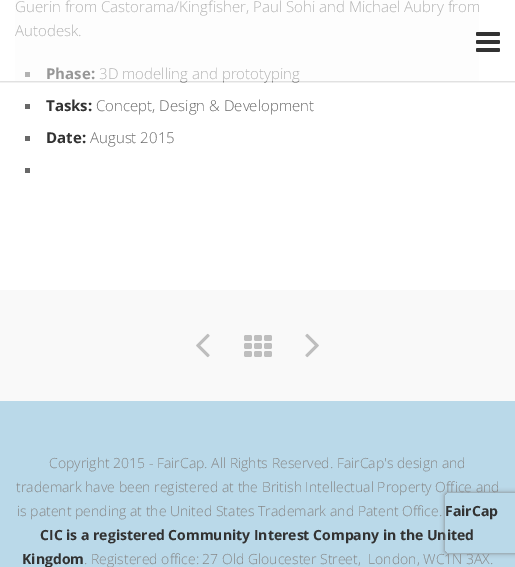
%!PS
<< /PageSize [515 567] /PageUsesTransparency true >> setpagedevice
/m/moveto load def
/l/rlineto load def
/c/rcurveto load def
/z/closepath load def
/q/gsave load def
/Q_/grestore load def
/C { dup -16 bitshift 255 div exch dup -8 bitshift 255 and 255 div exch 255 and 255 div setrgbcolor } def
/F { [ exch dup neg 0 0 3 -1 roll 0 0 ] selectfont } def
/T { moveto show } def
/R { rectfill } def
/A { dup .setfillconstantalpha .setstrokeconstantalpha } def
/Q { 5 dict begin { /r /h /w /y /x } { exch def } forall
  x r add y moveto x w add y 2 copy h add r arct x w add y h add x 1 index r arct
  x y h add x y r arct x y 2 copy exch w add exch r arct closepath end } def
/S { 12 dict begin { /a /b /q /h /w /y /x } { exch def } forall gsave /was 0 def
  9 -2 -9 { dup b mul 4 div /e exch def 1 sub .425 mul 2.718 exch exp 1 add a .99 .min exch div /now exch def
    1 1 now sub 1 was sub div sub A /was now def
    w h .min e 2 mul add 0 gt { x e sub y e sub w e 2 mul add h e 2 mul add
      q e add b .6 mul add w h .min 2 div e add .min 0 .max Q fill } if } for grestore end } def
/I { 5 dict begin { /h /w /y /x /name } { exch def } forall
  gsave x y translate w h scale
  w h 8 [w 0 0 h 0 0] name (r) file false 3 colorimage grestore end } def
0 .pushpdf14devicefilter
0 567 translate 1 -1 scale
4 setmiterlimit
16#FFFFFF C
0 0 515 567 R
16#686868 C
25 72 5 5 R
q
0 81 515 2 rectclip
16#000000 C
0 0 515 81 0 1.5 .3 S
Q_
/OpenSans-Light 15 F
(Guerin from Castorama/Kingfisher, Paul Sohi and Michael Aubry from) 15 12 T
(Autodesk.) 15 36 T
/OpenSans-Bold 15 F
16#323232 C
(Phase:) 46 79 T
/OpenSans-Light 15 F
16#686868 C
(3D modelling and prototyping) 99 79 T
0.5 A
16#FCFCFC C
15 0 464 81 R
1 A
(1.rgb) 476 32 24 20 I
16#686868 C
25 104 5 5 R
/OpenSans-Bold 15 F
16#323232 C
(Tasks:) 46 111 T
/OpenSans-Light 15 F
16#686868 C
(Concept, Design & Development) 96 111 T
25 136 5 5 R
/OpenSans-Bold 15 F
16#323232 C
(Date:) 46 143 T
/OpenSans-Light 15 F
16#686868 C
(August 2015) 90 143 T
25 168 5 5 R
16#F9F9F9 C
0 290 515 111 R
(2.rgb) 196 333 14 25 I
(3.rgb) 244 335 28 22 I
(4.rgb) 305 333 14 25 I
16#BAD9E9 C
0 401 515 166 R
/OpenSans-Light 14 F
16#868686 C
(Copyright 2015 - FairCap. All Rights Reserved. FairCap's design and) 49 468 T
(trademark have been registered at the British Intellectual Property Office and) 16 492 T
(is patent pending at the United States Trademark and Patent Office.) 17 516 T
/OpenSans-Bold 14 F
16#323232 C
(FairCap) 445 516 T
(CIC is a registered Community Interest Company in the United) 40 540 T
(Kingdom) 22 564 T
/OpenSans-Light 14 F
16#868686 C
(. Registered office: 27 Old Gloucester Street,  London, WC1N 3AX.) 84 564 T
q
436 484 m 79 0 l 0 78 l -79 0 l z 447 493 m 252 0 l 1 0 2 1 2 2 c 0 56 l 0 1 -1 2 -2 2 c -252 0 l -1 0 -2 -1 -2 -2 c 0 -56 l 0 -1 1 -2 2 -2 c z eoclip newpath
16#808080 C
445 493 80 60 2 2.5 1 S
Q_
.poppdf14devicefilter showpage
